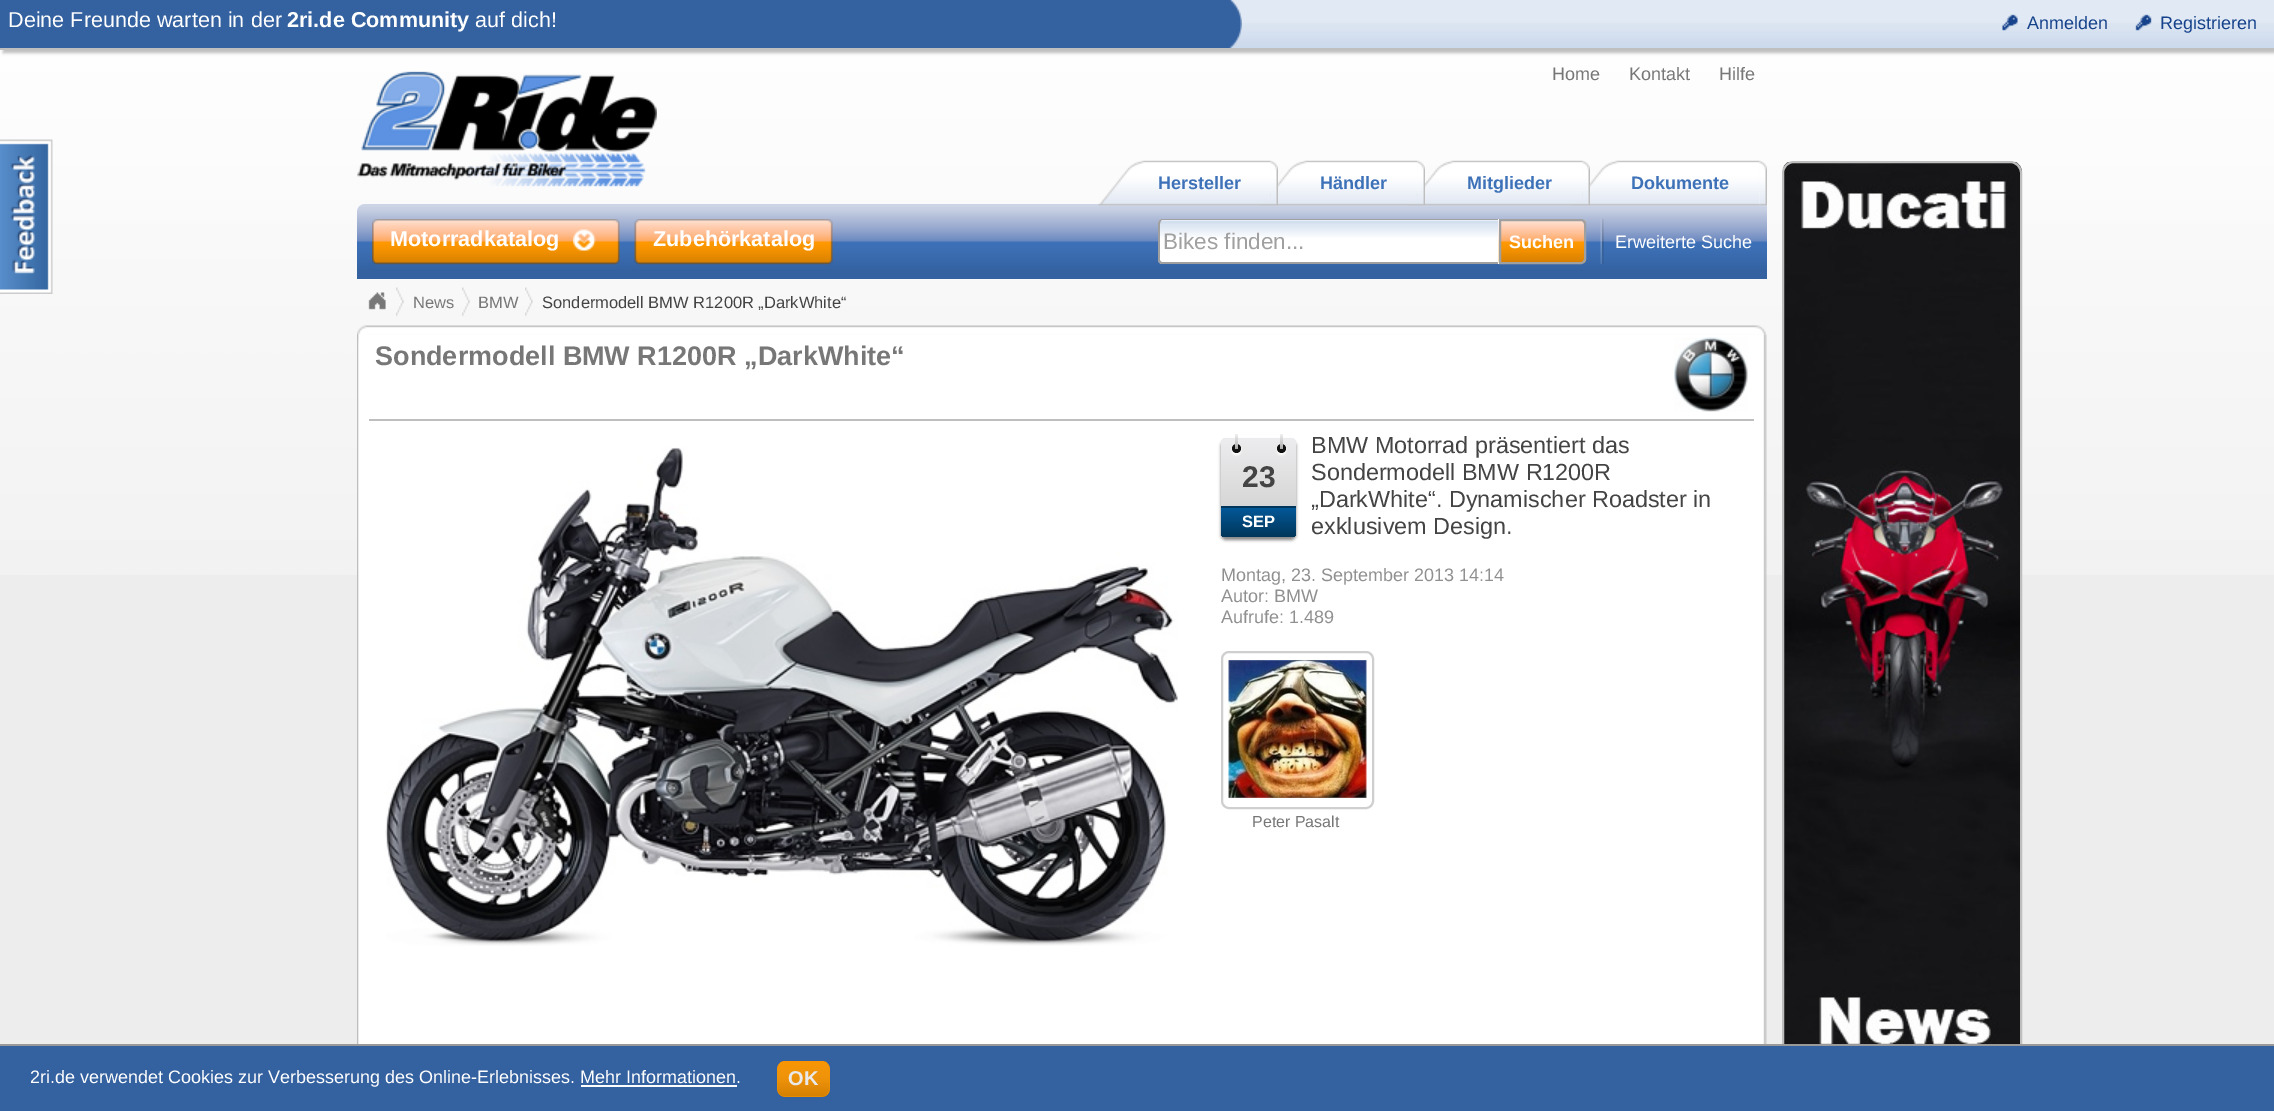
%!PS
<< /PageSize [2274 1111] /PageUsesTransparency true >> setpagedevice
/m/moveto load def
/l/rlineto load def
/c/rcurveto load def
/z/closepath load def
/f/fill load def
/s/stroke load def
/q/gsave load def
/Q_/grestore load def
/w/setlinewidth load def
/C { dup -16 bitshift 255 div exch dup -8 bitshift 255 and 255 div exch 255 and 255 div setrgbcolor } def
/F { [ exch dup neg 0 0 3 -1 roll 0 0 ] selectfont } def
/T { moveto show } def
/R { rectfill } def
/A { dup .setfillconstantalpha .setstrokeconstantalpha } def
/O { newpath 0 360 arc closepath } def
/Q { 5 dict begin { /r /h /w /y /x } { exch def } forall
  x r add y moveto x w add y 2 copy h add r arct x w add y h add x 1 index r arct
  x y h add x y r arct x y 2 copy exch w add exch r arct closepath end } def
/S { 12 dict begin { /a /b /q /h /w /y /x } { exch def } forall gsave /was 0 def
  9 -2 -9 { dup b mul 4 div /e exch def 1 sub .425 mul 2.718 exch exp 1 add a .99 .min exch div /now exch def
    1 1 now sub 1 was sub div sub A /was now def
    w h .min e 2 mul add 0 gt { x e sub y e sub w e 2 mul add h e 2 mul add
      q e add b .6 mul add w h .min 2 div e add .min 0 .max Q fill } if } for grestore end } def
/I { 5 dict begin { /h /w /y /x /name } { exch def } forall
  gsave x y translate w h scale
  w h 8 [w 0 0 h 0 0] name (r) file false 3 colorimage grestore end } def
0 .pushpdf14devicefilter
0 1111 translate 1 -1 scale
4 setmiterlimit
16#EDEDED C
0 0 2274 1111 R
(1.rgb) 0 50 2274 525 I
16#BEBEBE C
3 3 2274 50 0 1.5 1 S
16#E1E9F4 C
1229 0 1045 23 R
(2.rgb) 1229 23 1045 25 I
16#BEBEBE C
0 48 5 2 R
16#34619F C
0 0 1229 48 R
/LiberationSans-Regular 21.6 F
16#FFFFFF C
(Deine Freunde warten in der) 8 27 T
/LiberationSans-Bold 21.6 F
(2ri.de Community) 287 27 T
/LiberationSans-Regular 21.6 F
(auf dich!) 475 27 T
(3.rgb) 1229 0 13 48 I
(4.rgb) 2002 14 16 17 I
/LiberationSans-Regular 18 F
16#15428B C
(Anmelden) 2027 29 T
(5.rgb) 2135 14 17 17 I
(Registrieren) 2160 29 T
(6.rgb) 0 139 53 155 I
(7.rgb) 357 71 300 116 I
16#777777 C
(Home) 1552 80 T
(Kontakt) 1629 80 T
(Hilfe) 1719 80 T
(16.rgb) 357 204 1410 75 I
(14.rgb) 1572 160 188 46 I
(12.rgb) 1407 160 176 46 I
(10.rgb) 1260 160 158 46 I
(8.rgb) 1098 160 173 46 I
/LiberationSans-Bold 18 F
16#3D71B8 C
(Hersteller) 1158 189 T
(9.rgb) 1270 160 8 46 I
(Händler) 1320 189 T
(11.rgb) 1417 160 8 46 I
(Mitglieder) 1467 189 T
(13.rgb) 1582 160 8 46 I
(Dokumente) 1631 189 T
(15.rgb) 1759 160 8 46 I
(17.rgb) 372 219 248 46 I
/LiberationSans-Bold 21.6 F
16#FFFFFF C
(Motorradkatalog) 390 246 T
(18.rgb) 573 229 23 22 I
(19.rgb) 634 219 199 46 I
(Zubehörkatalog) 653 246 T
1163 219 m 336 0 l 0 45 l -336 0 l -3 0 -5 -2 -5 -5 c 0 -35 l 0 -3 2 -5 5 -5 c z f
(20.rgb) 1158 220 341 18 I
16#A0A0A0 C
1162 219 m 336 0 l 0 45 l -336 0 l -2 0 -4 -2 -4 -4 c 0 -36 l 0 -3 2 -5 4 -5 c z 1162 220 m 336 0 l 0 42 l -336 0 l -1 0 -2 -1 -2 -2 c 0 -36 l 0 -2 1 -4 2 -4 c z eofill
/LiberationSans-Regular 22.5 F
(Bikes finden...) 1163 249 T
(21.rgb) 1498 220 88 43 I
2 w
1500 220 m 81 0 l 2 0 4 2 4 4 c 0 35 l 0 2 -2 4 -4 4 c -81 0 l z s
/LiberationSans-Bold 18 F
16#FFFFFF C
(Suchen) 1509 248 T
(22.rgb) 1600 219 4 45 I
/LiberationSans-Regular 18 F
(Erweiterte Suche) 1615 248 T
(23.rgb) 1783 162 239 882 I
16#BEBEBE C
1783 162 238 901 11 Q s
(24.rgb) 396 287 8 30 I
(25.rgb) 368 292 18 18 I
(24.rgb) 462 287 8 30 I
/LiberationSans-Regular 16.5 F
16#777777 C
(News) 413 308 T
(24.rgb) 525 287 8 30 I
(BMW) 478 308 T
16#444444 C
(Sondermodell BMW R1200R „DarkWhite“) 542 308 T
(26.rgb) 366 325 1400 10 I
(27.rgb) 357 325 9 16 I
(28.rgb) 358 334 1409 710 I
(29.rgb) 357 334 2 710 I
16#BEBEBE C
369 419 1385 2 R
/LiberationSans-Bold 27 F
16#777777 C
(Sondermodell BMW R1200R „DarkWhite“) 375 365 T
(30.rgb) 1674 337 74 75 I
(31.rgb) 385 447 793 499 I
/LiberationSans-Regular 23.4 F
16#444444 C
(BMW Motorrad präsentiert das) 1311 453 T
16#888888 C
1221 441 75 99 5 1.5 1 S
q 1221 438 75 99 5 Q clip newpath
<< /ShadingType 2 /ColorSpace /DeviceRGB /Coords [1259 438 1259 537] /Extend [true true] /Function << /FunctionType 2 /Domain [0 1] /C0 [.929 .929 .937] /C1 [.8 .8 .8] /N 1 >> >> shfill Q_
16#FFFFFF C
1232 446 9 9 4.5 1 1 S
16#111111 C
1236.5 448.5 4.5 O f
16#FFFFFF C
1277 446 9 9 4.5 1 1 S
16#111111 C
1281.5 448.5 4.5 O f
/LiberationSans-Bold 30 F
16#444444 C
(23) 1242 487 T
q 1221 507 m 75 0 l 0 25 l 0 3 -2 5 -5 5 c -65 0 l -3 0 -5 -2 -5 -5 c z clip newpath
<< /ShadingType 2 /ColorSpace /DeviceRGB /Coords [1259 507 1259 537] /Extend [true true] /Function << /FunctionType 2 /Domain [0 1] /C0 [.016 .349 .604] /C1 [0 .212 .353] /N 1 >> >> shfill Q_
16#00365A C
1221 506 75 2 R
q 1235 434 3 15 1.5 Q clip newpath
<< /ShadingType 2 /ColorSpace /DeviceRGB /Coords [1236 434 1236 449] /Extend [true true] /Function << /FunctionType 2 /Domain [0 1] /C0 [.945 .945 .945] /C1 [.667 .667 .667] /N 1 >> >> shfill Q_
q 1280 434 3 15 1.5 Q clip newpath
<< /ShadingType 2 /ColorSpace /DeviceRGB /Coords [1281 434 1281 449] /Extend [true true] /Function << /FunctionType 2 /Domain [0 1] /C0 [.945 .945 .945] /C1 [.667 .667 .667] /N 1 >> >> shfill Q_
/LiberationSans-Bold 16.5 F
16#FFFFFF C
(SEP) 1242 527 T
/LiberationSans-Regular 23.4 F
16#444444 C
(Sondermodell BMW R1200R) 1311 480 T
(„DarkWhite“. Dynamischer Roadster in) 1311 507 T
(exklusivem Design.) 1311 534 T
/LiberationSans-Regular 18 F
16#909090 C
(Montag, 23. September 2013 14:14) 1221 581 T
(Autor: BMW) 1221 602 T
(Aufrufe: 1.489) 1221 623 T
16#CFCFCF C
1222 652 151 156 7 Q s
(32.rgb) 1228 660 139 138 I
/LiberationSans-Regular 16 F
16#777777 C
(Peter Pasalt) 1252 827 T
16#34619F C
0 1046 2274 65 R
16#999999 C
0 1044 2274 2 R
/LiberationSans-Regular 18 F
16#FFFFFF C
(2ri.de verwendet Cookies zur Verbesserung des Online-Erlebnisses. Mehr Informationen.) 30 1083 T
16#F79400 C
777 1061 53 36 8 Q f
(33.rgb) 777 1063 53 34 I
/LiberationSans-Bold 20 F
16#E9E9E9 C
(OK) 788 1085 T
16#FFFFFF C
581 1085 156 2 R
.poppdf14devicefilter showpage
